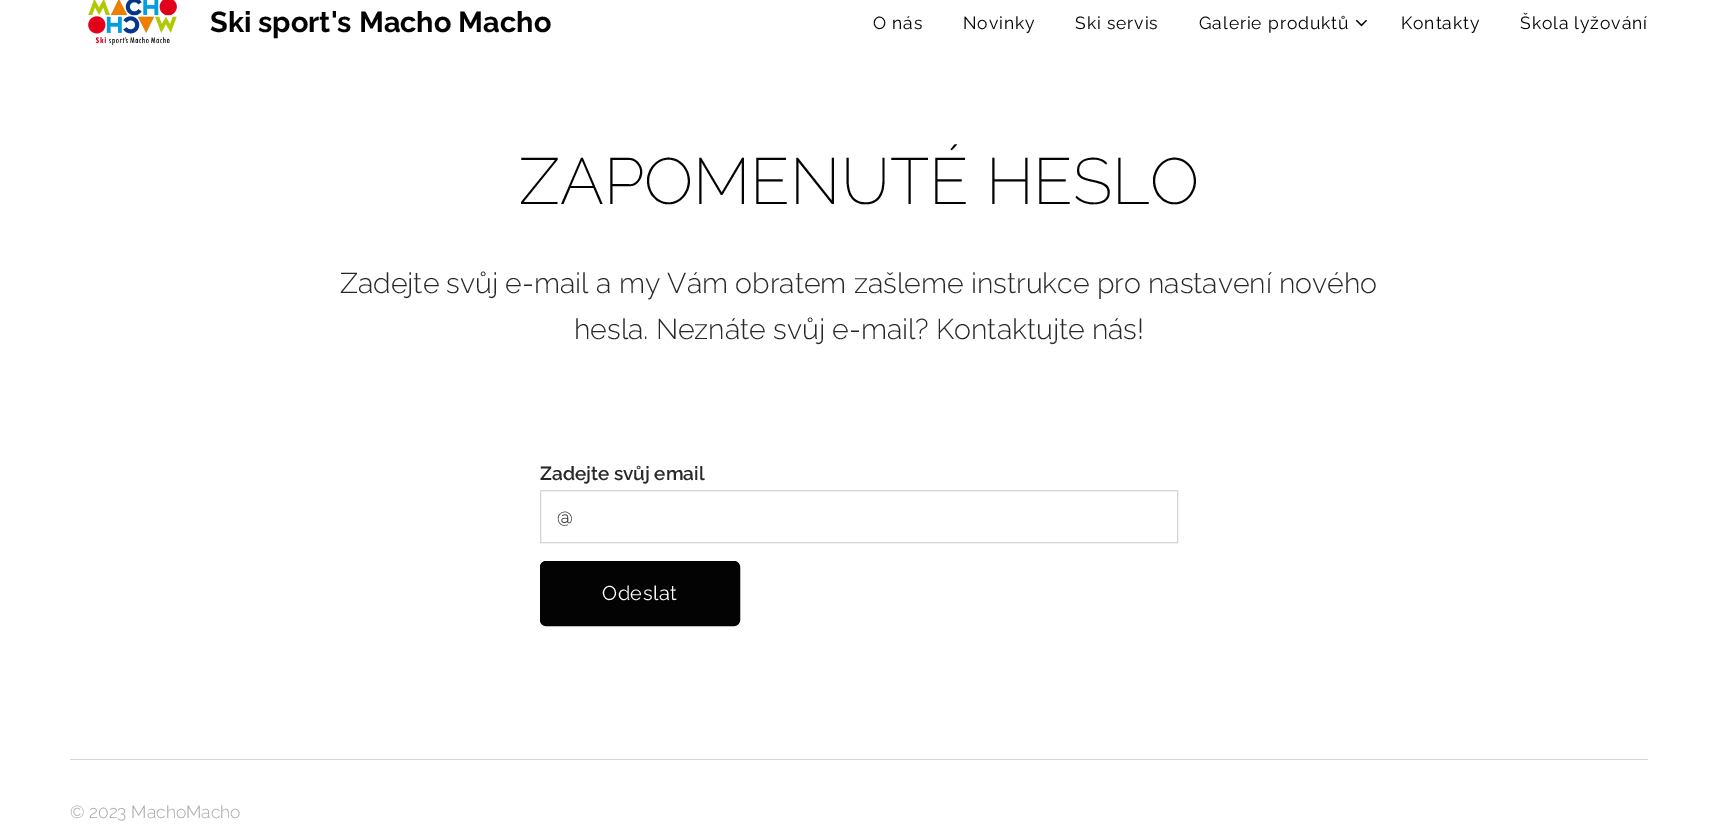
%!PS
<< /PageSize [1717 825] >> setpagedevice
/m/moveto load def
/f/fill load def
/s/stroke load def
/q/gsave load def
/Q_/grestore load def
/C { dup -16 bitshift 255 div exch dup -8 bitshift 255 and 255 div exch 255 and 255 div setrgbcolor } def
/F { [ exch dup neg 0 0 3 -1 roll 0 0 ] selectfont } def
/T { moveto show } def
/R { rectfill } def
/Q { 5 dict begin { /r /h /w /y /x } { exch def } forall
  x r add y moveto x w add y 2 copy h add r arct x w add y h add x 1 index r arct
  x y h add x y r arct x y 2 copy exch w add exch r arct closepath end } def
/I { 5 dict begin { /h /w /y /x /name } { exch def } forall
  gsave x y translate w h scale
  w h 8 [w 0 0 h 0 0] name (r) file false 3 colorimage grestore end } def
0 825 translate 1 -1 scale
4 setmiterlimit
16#FFFFFF C
0 0 1717 825 R
(1.rgb) 88 0 89 45 I
/Raleway-Bold 28.9 F
16#030303 C
(Ski sport's Macho Macho) 210 32 T
/Raleway-Regular 17.5 F
873 29 m .9 0 (O nás) ashow
963 29 m .9 0 (Novinky) ashow
1075 29 m .9 0 (Ski servis) ashow
1199 29 m .9 0 (Galerie produktů) ashow
(2.rgb) 1355 19 12 8 I
1401 29 m .9 0 (Kontakty) ashow
1520 29 m .9 0 (Škola lyžování) ashow
/Raleway-ExtraLight 65 F
(ZAPOMENUTÉ HESLO) 519 204 T
/Raleway-Light 28.5 F
16#282828 C
(Zadejte svůj e-mail a my Vám obratem zašleme instrukce pro nastavení nového) 340 293 T
(hesla. Neznáte svůj e-mail? Kontaktujte nás!) 574 339 T
/Raleway-SemiBold 19 F
(Zadejte svůj email) 540 480 T
16#D4D4D4 C
540.5 490.5 637 52 rectstroke
/Raleway-Regular 19 F
16#282828 C
(@) 557 523 T
16#030303 C
540.5 561.5 199 64 5.5 Q q f Q_
s
/Raleway-Regular 20 F
16#FFFFFF C
602 600 m .5 0 (Odeslat) ashow
16#D4D4D4 C
70 759 1578 1 R
/Raleway-Light 17.5 F
16#A4A4A4 C
(© 2023 MachoMacho) 70 818 T
showpage
